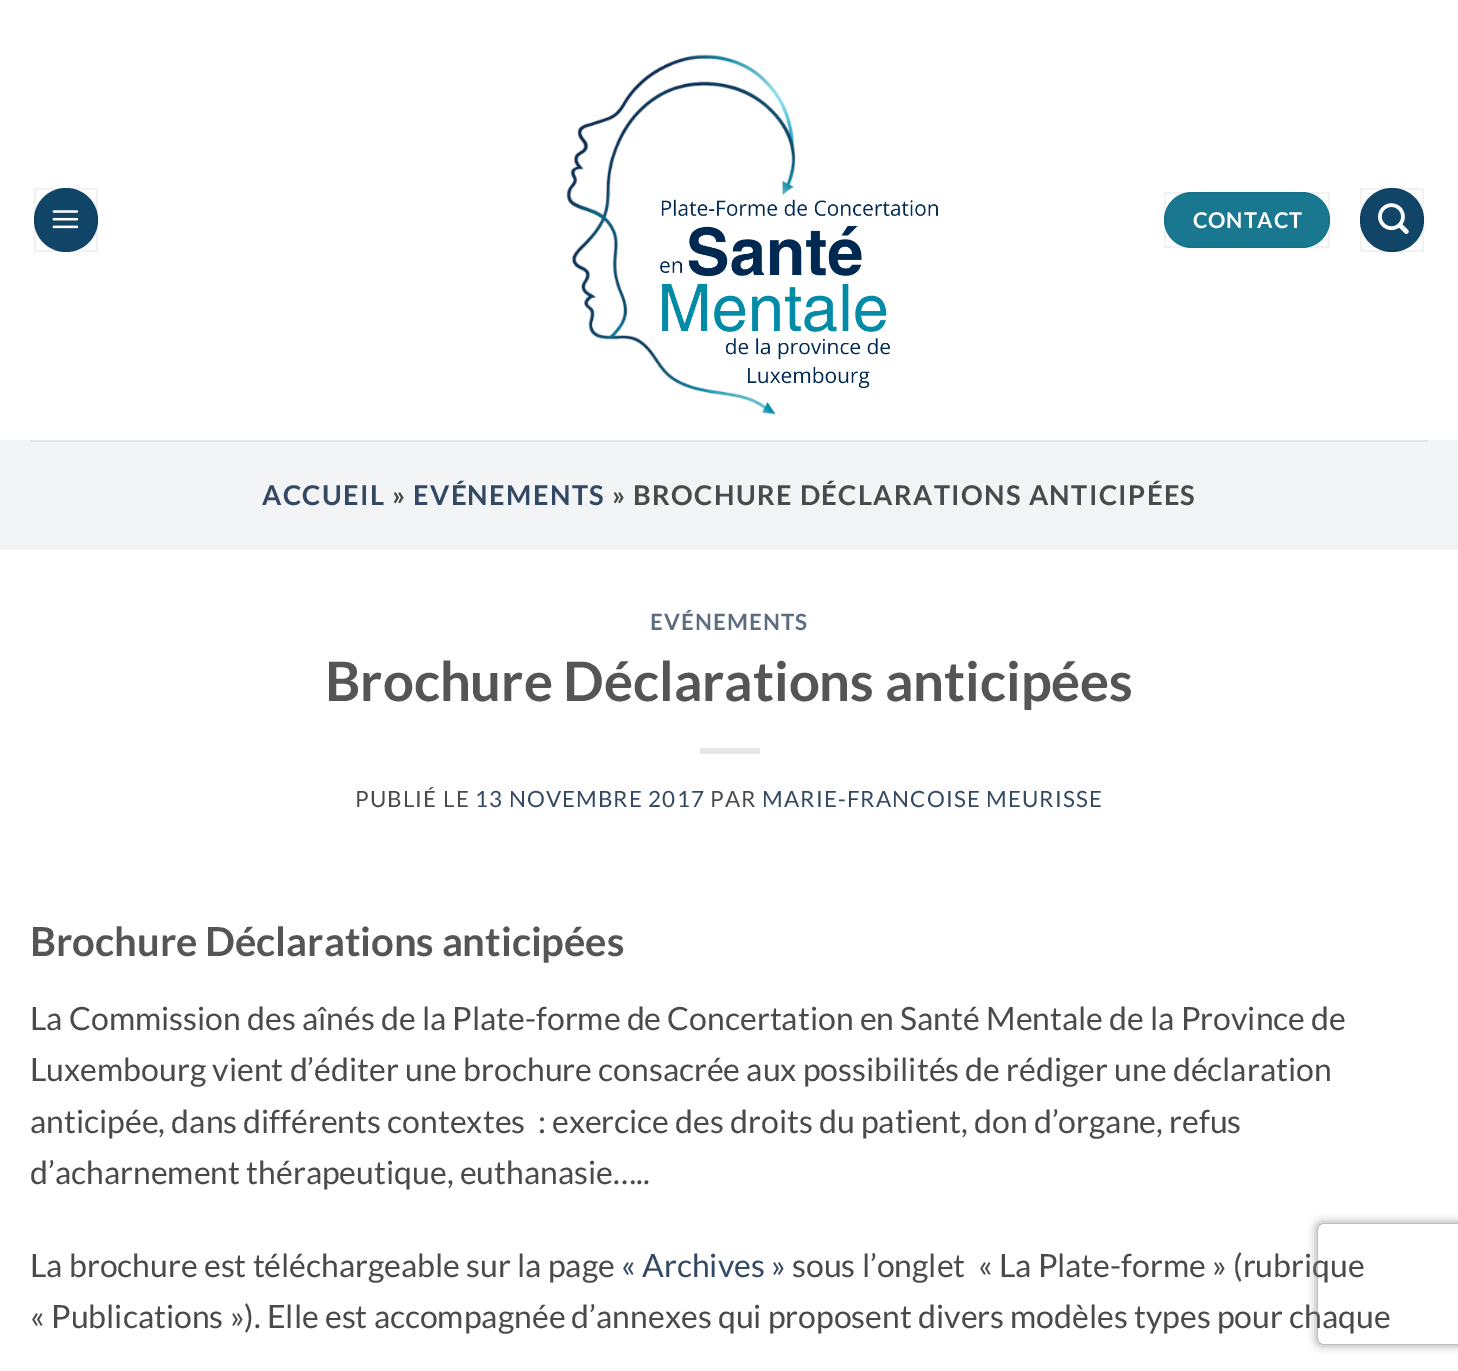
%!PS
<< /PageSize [1458 1371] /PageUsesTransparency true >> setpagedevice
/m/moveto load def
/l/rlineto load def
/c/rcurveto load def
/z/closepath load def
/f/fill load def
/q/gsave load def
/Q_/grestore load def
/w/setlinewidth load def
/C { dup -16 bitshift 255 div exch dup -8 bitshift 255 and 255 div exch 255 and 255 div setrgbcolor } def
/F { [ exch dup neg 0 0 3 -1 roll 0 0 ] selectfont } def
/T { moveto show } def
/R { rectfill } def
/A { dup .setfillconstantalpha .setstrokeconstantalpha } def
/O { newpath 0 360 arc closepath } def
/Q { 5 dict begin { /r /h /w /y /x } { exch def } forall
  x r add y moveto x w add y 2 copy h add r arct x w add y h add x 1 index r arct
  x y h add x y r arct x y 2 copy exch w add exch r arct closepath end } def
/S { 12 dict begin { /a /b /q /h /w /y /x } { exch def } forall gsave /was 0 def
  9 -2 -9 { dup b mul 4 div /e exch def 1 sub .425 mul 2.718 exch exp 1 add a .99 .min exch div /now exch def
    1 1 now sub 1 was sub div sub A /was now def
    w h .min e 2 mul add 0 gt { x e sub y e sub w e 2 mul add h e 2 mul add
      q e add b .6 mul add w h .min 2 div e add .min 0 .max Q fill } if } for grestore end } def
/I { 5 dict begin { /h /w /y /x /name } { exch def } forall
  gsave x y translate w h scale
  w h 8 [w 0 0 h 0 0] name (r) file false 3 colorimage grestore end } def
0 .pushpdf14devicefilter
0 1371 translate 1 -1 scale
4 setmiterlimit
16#FFFFFF C
0 0 1458 1371 R
16#104567 C
66 220 32 O f
0.05 A
16#000000 C
2 w
35 189 62 62 rectstroke
1 A
(1.rgb) 52 210 27 19 I
(2.rgb) 566 54 372 361 I
16#197790 C
1164 192 166 56 28 Q f
0.05 A
16#000000 C
1165 193 164 54 rectstroke
/Lato-Bold 21.75 F
1 A
16#FFFFFF C
1193 228 m .75 0 (CONTACT) ashow
16#104567 C
1392 220 32 O f
0.05 A
16#000000 C
1361 189 62 62 rectstroke
1 A
(3.rgb) 1378 203 31 31 I
16#F2F4F6 C
0 440 1458 110 R
16#E1E3E5 C
30 440 1398 2 R
/Lato-Bold 27.2 F
16#334862 C
262 505 m 1.35 0 (ACCUEIL) ashow
16#4A4A4A C
392 505 m 1.35 0 (») ashow
16#334862 C
413 505 m 1.35 0 (EVÉNEMENTS) ashow
16#4A4A4A C
612 505 m 1.35 0 (» BROCHURE DÉCLARATIONS ANTICIPÉES) ashow
/Lato-Bold 22.4 F
16#5C6D81 C
650 630 m 1.1 0 (EVÉNEMENTS) ashow
/Lato-Bold 54.4 F
16#555555 C
(Brochure Déclarations anticipées) 325 701 T
16#E6E6E6 C
700 748 60 6 R
/Lato-Regular 22.4 F
16#4A4A4A C
355 807 m 1.1 0 (PUBLIÉ LE) ashow
16#334862 C
475 807 m 1.1 0 (13 NOVEMBRE 2017) ashow
16#4A4A4A C
710 807 m 1.1 0 (PAR) ashow
16#334862 C
762 807 m 1.1 0 (MARIE-FRANCOISE MEURISSE) ashow
/Lato-Bold 40 F
16#555555 C
(Brochure Déclarations anticipées) 30 956 T
/Lato-Regular 32 F
16#4A4A4A C
(La Commission des aînés de la Plate-forme de Concertation en Santé Mentale de la Province de) 30 1030 T
(Luxembourg vient d’éditer une brochure consacrée aux possibilités de rédiger une déclaration) 30 1081 T
(anticipée, dans différents contextes  : exercice des droits du patient, don d’organe, refus) 30 1133 T
(d’acharnement thérapeutique, euthanasie…..) 30 1184 T
(La brochure est téléchargeable sur la page) 30 1277 T
16#334862 C
(« Archives ») 621 1277 T
16#4A4A4A C
(sous l’onglet  « La Plate-forme » \(rubrique) 792 1277 T
(« Publications »\). Elle est accompagnée d’annexes qui proposent divers modèles types pour chaque) 30 1328 T
q
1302 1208 m 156 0 l 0 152 l -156 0 l z 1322 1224 m 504 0 l 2 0 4 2 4 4 c 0 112 l 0 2 -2 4 -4 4 c -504 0 l -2 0 -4 -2 -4 -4 c 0 -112 l 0 -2 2 -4 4 -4 c z eoclip newpath
16#808080 C
1318 1224 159 120 4 5 1 S
Q_
.poppdf14devicefilter showpage
